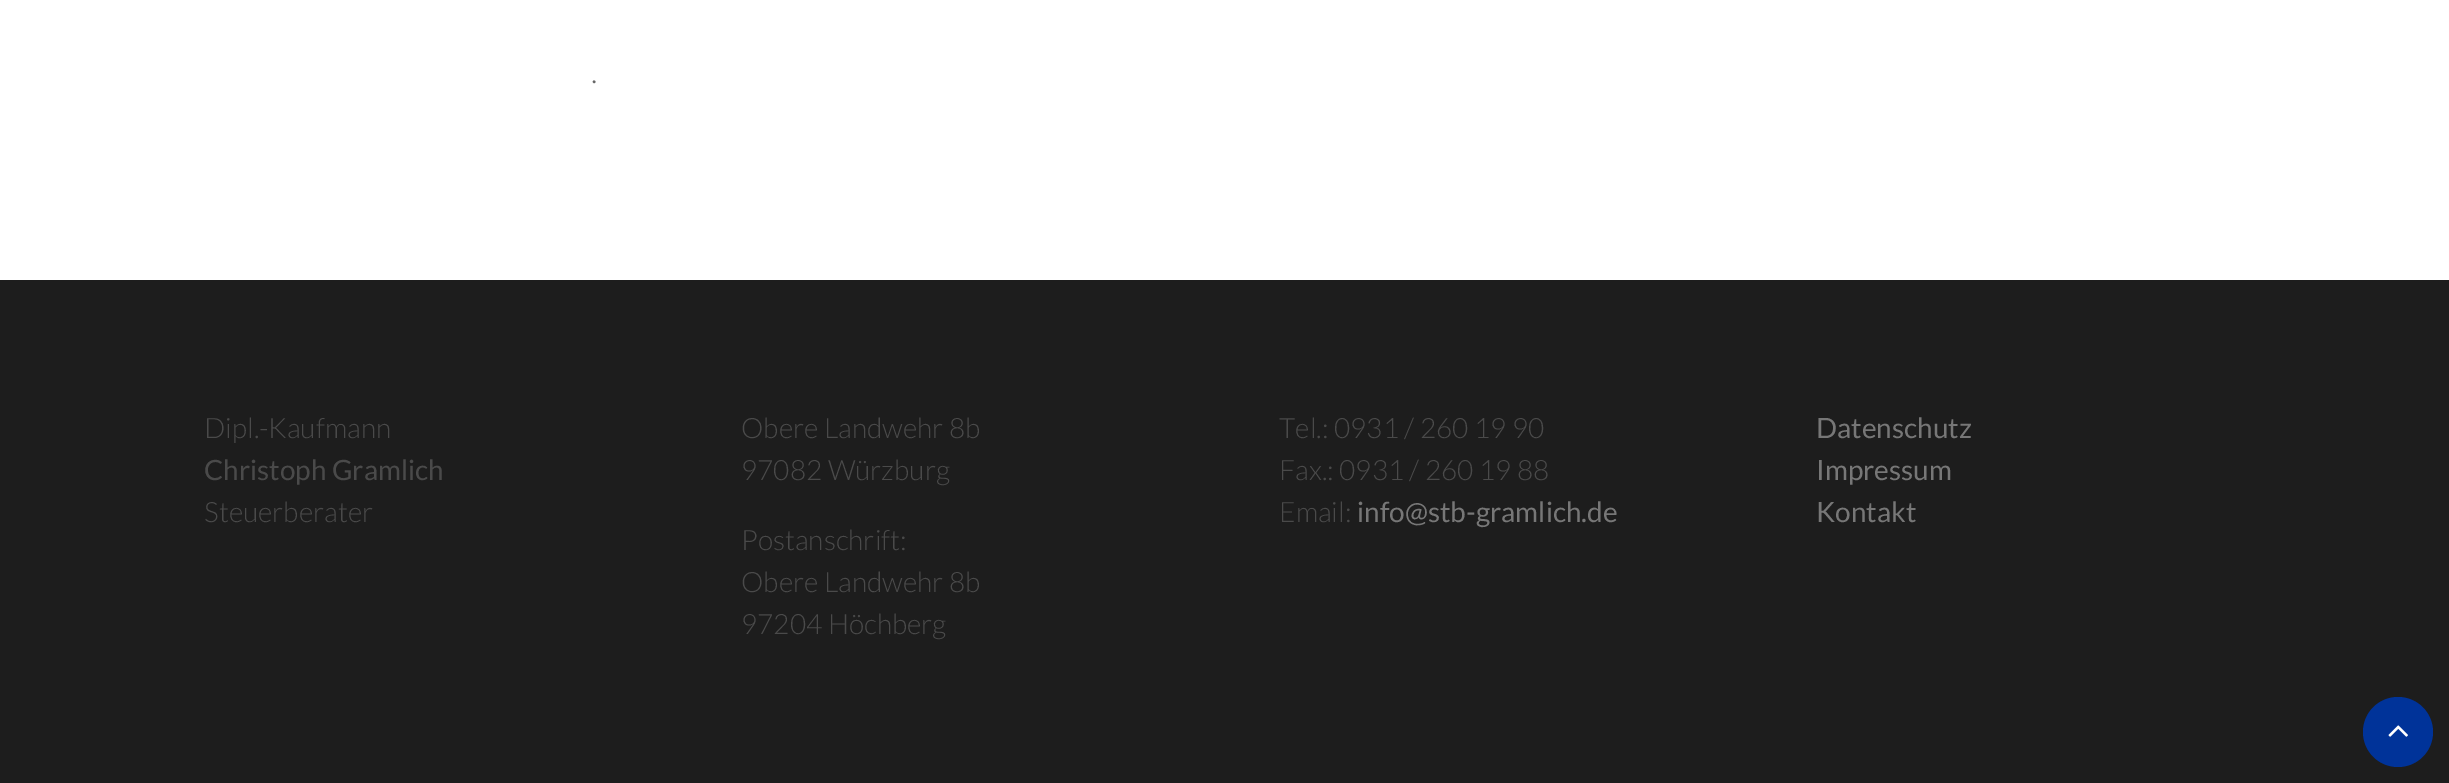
%!PS
<< /PageSize [2449 783] >> setpagedevice
/f/fill load def
/C { dup -16 bitshift 255 div exch dup -8 bitshift 255 and 255 div exch 255 and 255 div setrgbcolor } def
/F { [ exch dup neg 0 0 3 -1 roll 0 0 ] selectfont } def
/T { moveto show } def
/R { rectfill } def
/O { newpath 0 360 arc closepath } def
/I { 5 dict begin { /h /w /y /x /name } { exch def } forall
  gsave x y translate w h scale
  w h 8 [w 0 0 h 0 0] name (r) file false 3 colorimage grestore end } def
0 783 translate 1 -1 scale
4 setmiterlimit
16#FFFFFF C
0 0 2449 783 R
/Lato-Light 32 F
16#666666 C
(.) 591 83 T
16#1D1D1D C
0 280 2449 503 R
/Lato-Light 28 F
16#4A4A4A C
(Dipl.-Kaufmann) 204 438 T
/Lato-Regular 28 F
(Christoph Gramlich) 204 480 T
/Lato-Light 28 F
(Steuerberater) 204 522 T
(Obere Landwehr 8b) 741 438 T
(97082 Würzburg) 741 480 T
(Postanschrift:) 741 550 T
(Obere Landwehr 8b) 741 592 T
(97204 Höchberg) 741 634 T
(Tel.: 0931 / 260 19 90) 1279 438 T
(Fax.: 0931 / 260 19 88) 1279 480 T
(Email:) 1279 522 T
/Lato-Regular 28 F
16#777777 C
(info@stb-gramlich.de) 1357 522 T
(Datenschutz) 1816 438 T
(Impressum) 1816 480 T
(Kontakt) 1816 522 T
16#003399 C
2398 732 35 O f
(1.rgb) 2388 725 20 12 I
showpage
